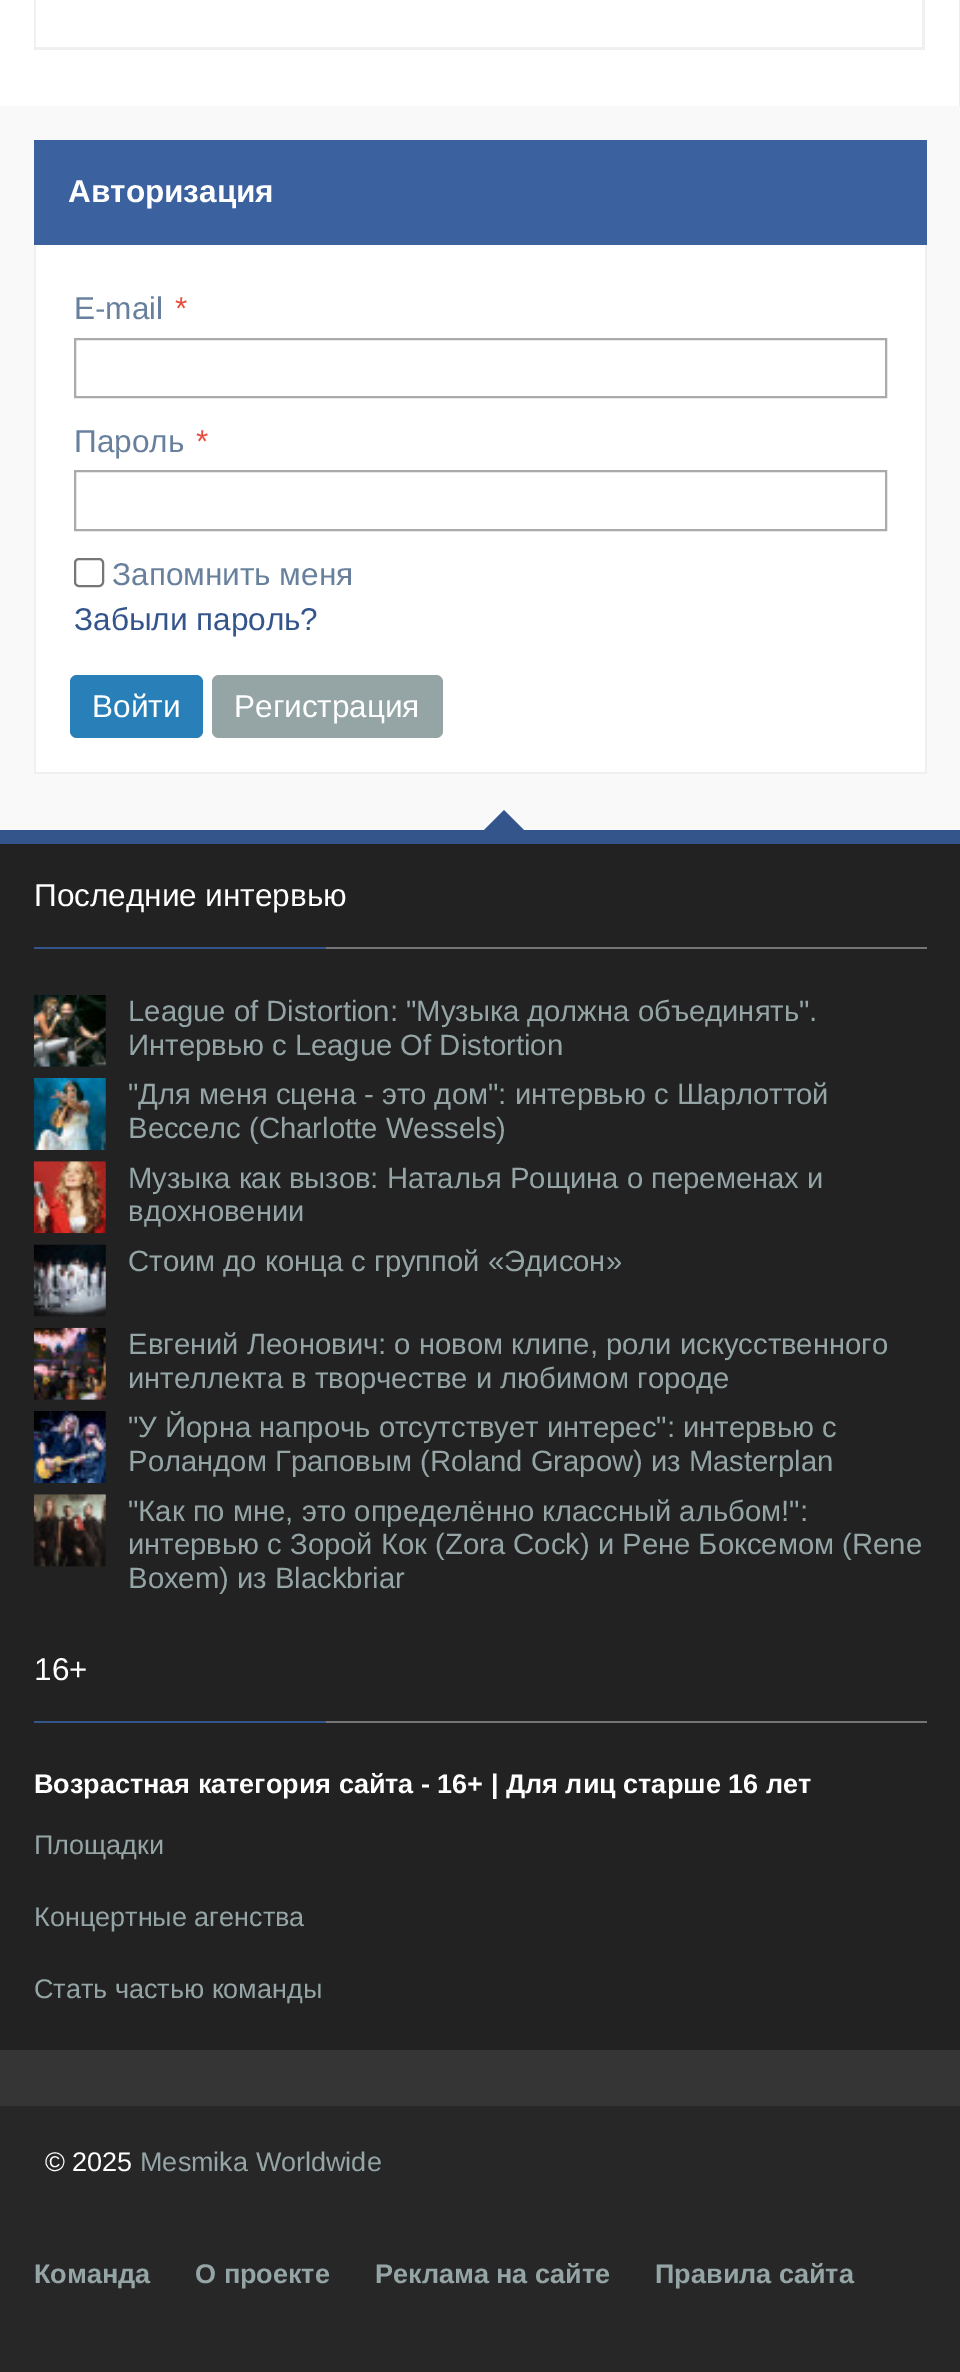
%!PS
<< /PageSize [960 2372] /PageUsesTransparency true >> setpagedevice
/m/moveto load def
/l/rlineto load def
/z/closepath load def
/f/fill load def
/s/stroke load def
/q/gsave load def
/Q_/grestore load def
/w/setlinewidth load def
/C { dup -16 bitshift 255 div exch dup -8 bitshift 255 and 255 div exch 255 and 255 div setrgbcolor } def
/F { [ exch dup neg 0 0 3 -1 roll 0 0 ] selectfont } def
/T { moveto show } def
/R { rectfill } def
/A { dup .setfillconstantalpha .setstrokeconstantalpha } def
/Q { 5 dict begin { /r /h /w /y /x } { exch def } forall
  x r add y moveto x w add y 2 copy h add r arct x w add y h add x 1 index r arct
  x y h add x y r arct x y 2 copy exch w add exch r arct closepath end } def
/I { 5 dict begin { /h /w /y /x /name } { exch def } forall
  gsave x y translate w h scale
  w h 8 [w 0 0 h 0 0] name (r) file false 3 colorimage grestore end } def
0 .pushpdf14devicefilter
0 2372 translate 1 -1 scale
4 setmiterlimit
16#F9F9F9 C
0 0 960 2372 R
16#FFFFFF C
0 0 959 106 R
16#EEEEEE C
959 0 1 106 R
16#F0F0F0 C
925 -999 m 0 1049 l -3 -3 l 0 -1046 l z f
0.06 A
16#000000 C
925 50 m -891 0 l 2 -3 l 886 0 l z f
34 50 m 0 -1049 l 2 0 l 0 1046 l z f
1 A
16#FFFFFF C
34 245 893 529 R
16#3B619E C
34 140 893 105 R
/LiberationSans-Bold 31.5 F
16#FFFFFF C
(Авторизация) 68 202 T
16#F0F0F0 C
927 245 m 0 529 l -2 -2 l 0 -527 l z f
0.06 A
16#000000 C
927 774 m -893 0 l 2 -2 l 889 0 l z f
34 774 m 0 -529 l 2 0 l 0 527 l z f
/LiberationSans-Regular 31.5 F
1 A
16#68809B C
(E-mail) 74 319 T
16#E74C3C C
(*) 175 319 T
16#AAAAAA C
2 w
75 339 811 58 rectstroke
16#68809B C
(Пароль) 74 452 T
16#E74C3C C
(*) 196 452 T
16#AAAAAA C
75 471 811 59 rectstroke
16#767676 C
75 559 28 27 4 Q s
16#68809B C
(Запомнить меня) 112 585 T
16#34558B C
(Забыли пароль?) 74 630 T
16#2980B9 C
70 675 133 63 7 Q f
16#FFFFFF C
(Войти) 92 717 T
16#95A5A6 C
212 675 231 63 7 Q f
16#FFFFFF C
(Регистрация) 234 717 T
16#272727 C
0 2106 960 266 R
16#34558B C
0 830 960 14 R
526 832 m -44 0 l 22 -22 l z f
16#222222 C
0 844 960 1206 R
16#757575 C
326 947 601 2 R
16#FFFFFF C
(Последние интервью) 34 906 T
16#34558B C
34 947 292 2 R
(1.rgb) 33 995 73 72 I
/LiberationSans-Regular 29.25 F
16#95A5A6 C
(League of Distortion: "Музыка должна объединять".) 128 1021 T
(Интервью с League Of Distortion) 128 1055 T
(2.rgb) 33 1078 73 72 I
("Для меня сцена - это дом": интервью с Шарлоттой) 128 1104 T
(Весселс \(Charlotte Wessels\)) 128 1138 T
(3.rgb) 33 1161 73 73 I
(Музыка как вызов: Наталья Рощина о переменах и) 128 1188 T
(вдохновении) 128 1221 T
(4.rgb) 33 1244 73 73 I
(Стоим до конца с группой «Эдисон») 128 1271 T
(5.rgb) 33 1327 73 73 I
(Евгений Леонович: о новом клипе, роли искусственного) 128 1354 T
(интеллекта в творчестве и любимом городе) 128 1388 T
(6.rgb) 33 1411 73 72 I
q
34 1411 893 72 rectclip
("У Йорна напрочь отсутствует интерес": интервью с) 128 1437 T
Q_
(Роландом Граповым \(Roland Grapow\) из Masterplan) 128 1471 T
(7.rgb) 33 1494 73 73 I
("Как по мне, это определённо классный альбом!":) 128 1521 T
(интервью с Зорой Кок \(Zora Cock\) и Рене Боксемом \(Rene) 128 1554 T
(Boxem\) из Blackbriar) 128 1588 T
16#757575 C
326 1721 601 2 R
/LiberationSans-Regular 31.5 F
16#FFFFFF C
(16+) 34 1680 T
16#34558B C
34 1721 292 2 R
/LiberationSans-Bold 27 F
16#FFFFFF C
(Возрастная категория сайта - 16+ | Для лиц старше 16 лет) 34 1793 T
/LiberationSans-Regular 27 F
16#95A5A6 C
(Площадки) 34 1854 T
(Концертные агенства) 34 1926 T
(Стать частью команды) 34 1998 T
16#353535 C
0 2050 960 56 R
16#FFFFFF C
(© 2025) 45 2171 T
16#95A5A6 C
(Mesmika Worldwide) 140 2171 T
/LiberationSans-Bold 27 F
(Команда) 34 2283 T
(О проекте) 195 2283 T
(Реклама на сайте) 375 2283 T
(Правила сайта) 655 2283 T
.poppdf14devicefilter showpage
